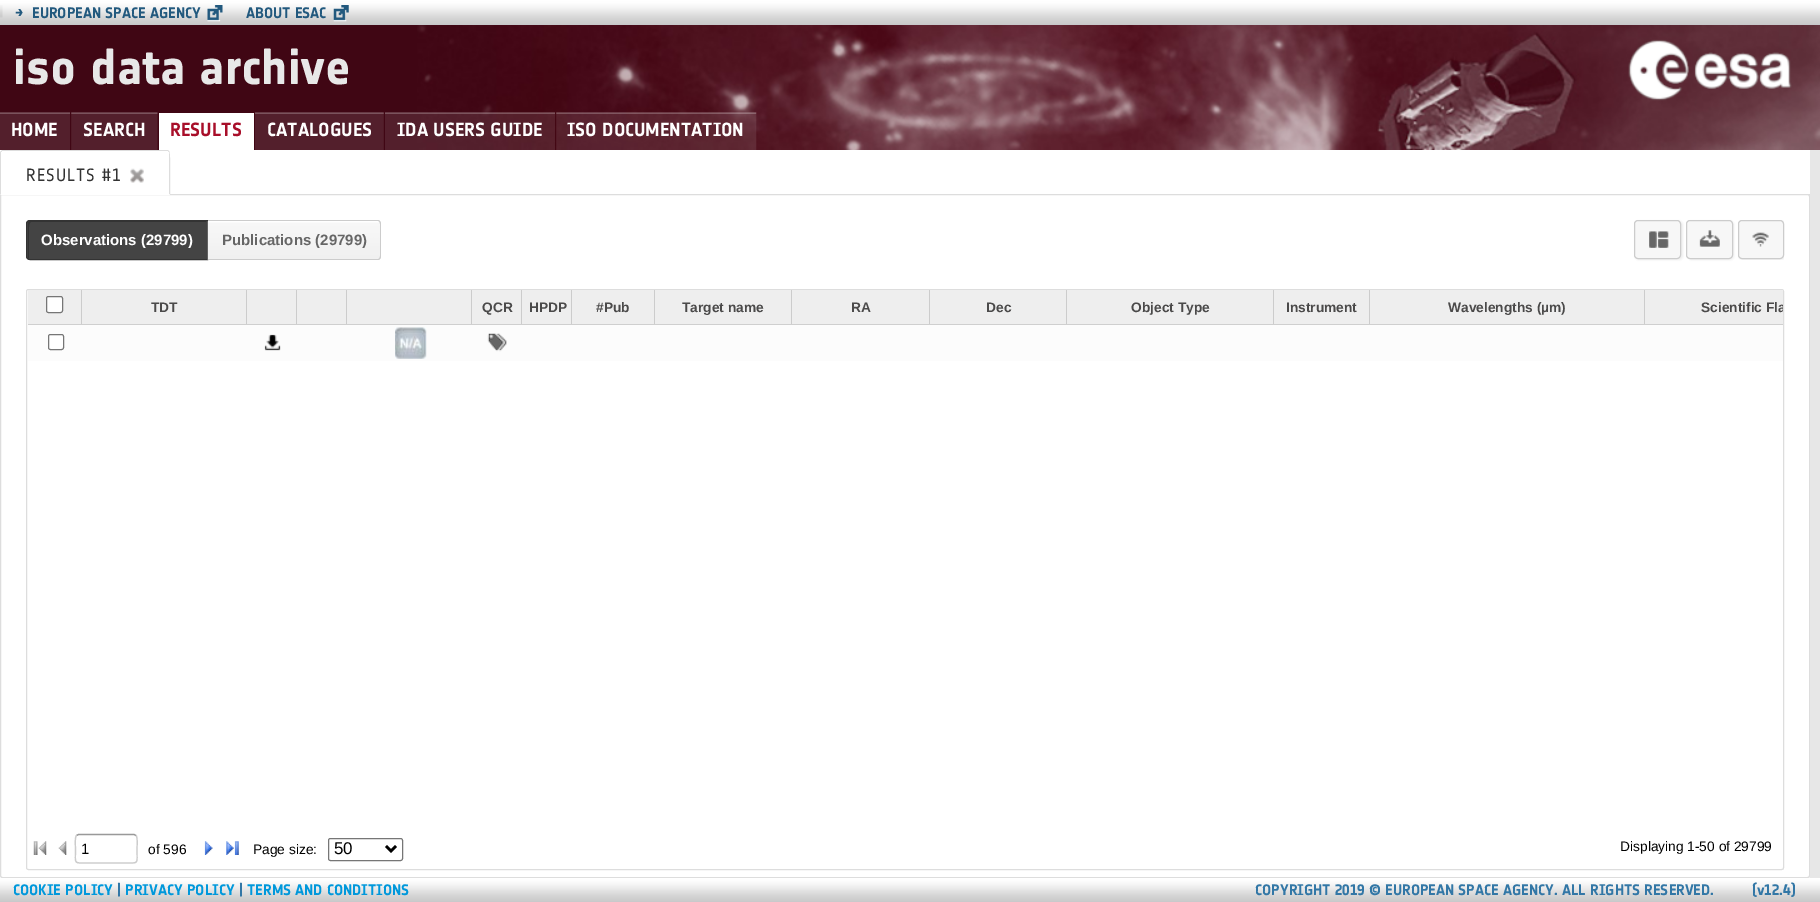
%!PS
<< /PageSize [1820 902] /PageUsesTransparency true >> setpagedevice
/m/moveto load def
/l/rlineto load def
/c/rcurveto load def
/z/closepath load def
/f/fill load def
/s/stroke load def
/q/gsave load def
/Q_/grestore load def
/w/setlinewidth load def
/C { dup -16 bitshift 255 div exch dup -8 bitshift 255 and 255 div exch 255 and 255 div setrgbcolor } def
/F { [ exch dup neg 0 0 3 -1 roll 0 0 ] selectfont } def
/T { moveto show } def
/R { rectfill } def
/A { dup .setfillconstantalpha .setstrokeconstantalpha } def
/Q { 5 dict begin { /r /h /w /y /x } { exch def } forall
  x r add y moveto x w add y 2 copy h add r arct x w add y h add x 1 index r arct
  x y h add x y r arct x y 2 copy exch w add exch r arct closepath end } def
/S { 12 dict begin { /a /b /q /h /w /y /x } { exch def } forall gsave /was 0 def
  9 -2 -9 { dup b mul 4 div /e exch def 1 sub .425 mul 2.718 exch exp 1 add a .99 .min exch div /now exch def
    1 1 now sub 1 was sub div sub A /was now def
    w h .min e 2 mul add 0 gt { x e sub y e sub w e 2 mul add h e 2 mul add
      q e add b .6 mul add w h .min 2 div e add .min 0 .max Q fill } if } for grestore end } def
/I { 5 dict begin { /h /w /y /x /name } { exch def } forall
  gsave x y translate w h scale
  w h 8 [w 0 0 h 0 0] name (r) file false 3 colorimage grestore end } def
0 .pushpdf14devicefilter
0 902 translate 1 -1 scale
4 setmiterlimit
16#FFFFFF C
0 0 1820 902 R
(1.rgb) 0 0 1820 25 I
(2.rgb) 0 5 3 13 I
(3.rgb) 207 5 16 17 I
/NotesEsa-Bold 15 F
16#22597E C
(→) 15 18 T
(EUROPEAN SPACE AGENCY) 32 18 T
(4.rgb) 333 5 16 17 I
(ABOUT ESAC) 246 18 T
16#400614 C
0 25 417 125 R
/NotesEsa-Bold 50 F
16#E8E8E8 C
(iso data archive) 13 84 T
(5.rgb) 417 25 1403 125 I
(6.rgb) 0 112 70 38 I
/NotesEsa-Bold 18.75 F
16#FFFFFF C
(HOME) 11 136 T
(7.rgb) 71 112 87 38 I
(SEARCH) 83 136 T
159 113 95 37 R
16#A80E29 C
(RESULTS) 170 136 T
(8.rgb) 255 112 129 38 I
16#FFFFFF C
(CATALOGUES) 267 136 T
(9.rgb) 385 112 170 38 I
(IDA USERS GUIDE) 397 136 T
(10.rgb) 556 112 201 38 I
(ISO DOCUMENTATION) 567 136 T
16#DDDDDD C
170 194 1640 1 R
2 150 m -1 1 l 1 1 l 0 -1 l 166 0 l 0 1 l 1 -1 l -1 -1 l z f
170 195 m 0 -5 1 -43 -1 -44 c -1 1 l 1 0 l 0 42 l z f
16#FFFFFF C
170 195 m -1 -1 l -168 0 l -1 1 l z f
16#DDDDDD C
0 195 m 1 -1 l 0 -42 l 1 0 l -1 -1 l -1 1 l z f
/NotesEsa-Regular 17.5 F
16#333333 C
26 181 m 1 0 (RESULTS #1) ashow
(11.rgb) 130 168 14 15 I
16#E7E7E7 C
1810 150 10 728 R
(23.rgb) 0 878 1820 24 I
q
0 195 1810 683 rectclip
16#EEEEEE C
1 195 1810 684 2.5 1 1 S
Q_
q
0 195 1810 683 rectclip
16#FFFFFF C
.5 194.5 m 1807 0 l 1 0 2 1 2 2 c 0 679 l 0 1 -1 2 -2 2 c -1805 0 l -1 0 -2 -1 -2 -2 c z q f Q_
16#DDDDDD C
s
Q_
16#444444 C
30 220 m 178 0 l 0 40 l -178 0 l -2 0 -4 -2 -4 -4 c 0 -32 l 0 -2 2 -4 4 -4 c z f
16#333333 C
31 222 m 175 0 l 0 -1 l -176 0 l -1 0 -2 1 -2 3 c 0 32 l 0 1 0 2 1 3 c 0 -23 l 0 -1 -1 -14 2 -14 c z f
30 220.5 m 177.5 0 l 0 39 l -177.5 0 l -2 0 -3.5 -1.5 -3.5 -3.5 c 0 -32 l 0 -2 1.5 -3.5 3.5 -3.5 c z s
/LiberationSans-Bold 15 F
16#FFFFFF C
(Observations \(29799\)) 41 245 T
(12.rgb) 207 221 174 39 I
16#CCCCCC C
208 220 m 170 0 l 2 0 3 2 3 4 c 0 32 l 0 2 -1 4 -3 4 c -170 0 l z 208 221 m 170 0 l 1 0 2 1 2 3 c 0 32 l 0 2 -1 3 -2 3 c -170 0 l z eofill
16#666666 C
(Publications \(29799\)) 222 245 T
16#EEEEEE C
1635 221 48 39 4 1 1 S
16#F7F7F7 C
1634 220 47 39 4 Q f
(13.rgb) 1649 231 20 17 I
16#CCCCCC C
1634.5 220.5 46 38 3.5 Q s
16#EEEEEE C
1688 221 46 39 4 1 1 S
16#F7F7F7 C
1686 220 47 39 4 Q f
(14.rgb) 1699 230 21 17 I
16#CCCCCC C
1686.5 220.5 46 38 3.5 Q s
q
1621 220 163 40 rectclip
16#EEEEEE C
1739 221 46 39 4 1 1 S
Q_
16#F7F7F7 C
1738 220 46 39 4 Q f
(15.rgb) 1752 232 17 15 I
16#CCCCCC C
1738.5 220.5 45 38 3.5 Q s
q
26 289 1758 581 rectclip
16#EEEEEE C
28 290 1757 581 2.5 1 1 S
Q_
16#FFFFFF C
26.5 289.5 1757 580 2 Q q f Q_
16#DDDDDD C
s
16#EEEEEE C
28 290 626 34 R
16#CCCCCC C
81 290 1 34 R
16#FFFFFF C
46.5 296.5 16 16 2 Q q f Q_
16#767676 C
s
16#CCCCCC C
246 290 1 34 R
/LiberationSans-Bold 13.75 F
16#4B4A4A C
(TDT) 151 312 T
16#CCCCCC C
296 290 1 34 R
346 290 1 34 R
471 290 1 34 R
521 290 1 34 R
16#4B4A4A C
(QCR) 482 312 T
16#CCCCCC C
571 290 1 34 R
16#4B4A4A C
(HPDP) 529 312 T
16#CCCCCC C
654 290 1 34 R
16#4B4A4A C
(#Pub) 596 312 T
16#EEEEEE C
655 290 274 34 R
16#CCCCCC C
791 290 1 34 R
16#4B4A4A C
(Target name) 682 312 T
16#CCCCCC C
929 290 1 34 R
16#4B4A4A C
(RA) 851 312 T
16#EEEEEE C
930 290 343 34 R
16#CCCCCC C
1066 290 1 34 R
16#4B4A4A C
(Dec) 986 312 T
16#CCCCCC C
1273 290 1 34 R
16#4B4A4A C
(Object Type) 1131 312 T
16#EEEEEE C
1274 290 95 34 R
16#CCCCCC C
1369 290 1 34 R
16#4B4A4A C
(Instrument) 1286 312 T
16#EEEEEE C
1370 290 274 34 R
16#CCCCCC C
1644 290 1 34 R
16#4B4A4A C
(Wavelengths \(µm\)) 1448 312 T
16#EEEEEE C
1645 290 138 34 R
q
1645 290 138 34 rectclip
16#4B4A4A C
(Scientific Fla) 1701 312 T
Q_
16#FCFCFC C
28 325 1755 36 R
16#CFCFCF C
28 324 1755 1 R
16#FFFFFF C
48.5 334.5 15 15 2 Q q f Q_
16#767676 C
s
(16.rgb) 264 334 17 17 I
(17.rgb) 395 327 32 32 I
(18.rgb) 487 333 20 19 I
(19.rgb) 33 841 14 14 I
(20.rgb) 58 841 9 14 I
16#999999 C
1.2 w
76.5 835.5 m 2 -1 l 55.5 0 l 2 1 l s
16#CCCCCC C
136 835.5 m 2 2 1 10.5 1 13.5 c 0 15.5 2.5 14 -12.5 14 c -36.5 0 l -15 0 -12.5 1.5 -12.5 -14 c 0 -3 -1 -11.5 1 -13.5 c s
/LiberationSans-Regular 15 F
16#000000 C
(1) 81 854 T
/LiberationSans-Regular 13.75 F
(of 596) 148 854 T
(21.rgb) 204 841 9 14 I
(22.rgb) 226 841 13 14 I
(Page size:) 253 854 T
16#767676 C
1 w
328.5 838.5 74 22 2 Q s
16#000000 C
2.5 w
386 846 m 5 5 l 5 -5 l s
/LiberationSans-Regular 17 F
(50) 334 854 T
/LiberationSans-Regular 13.75 F
(Displaying 1-50 of 29799) 1620 851 T
/NotesEsa-Bold 15 F
16#0098DB C
(COOKIE POLICY) 13 895 T
16#3277A6 C
(|) 117 895 T
16#0098DB C
(PRIVACY POLICY) 125 895 T
16#3277A6 C
(|) 239 895 T
16#0098DB C
(TERMS AND CONDITIONS) 247 895 T
16#3277A6 C
(COPYRIGHT 2019 © EUROPEAN SPACE AGENCY. ALL RIGHTS RESERVED.) 1255 895 T
(\(v12.4\)) 1752 895 T
.poppdf14devicefilter showpage
